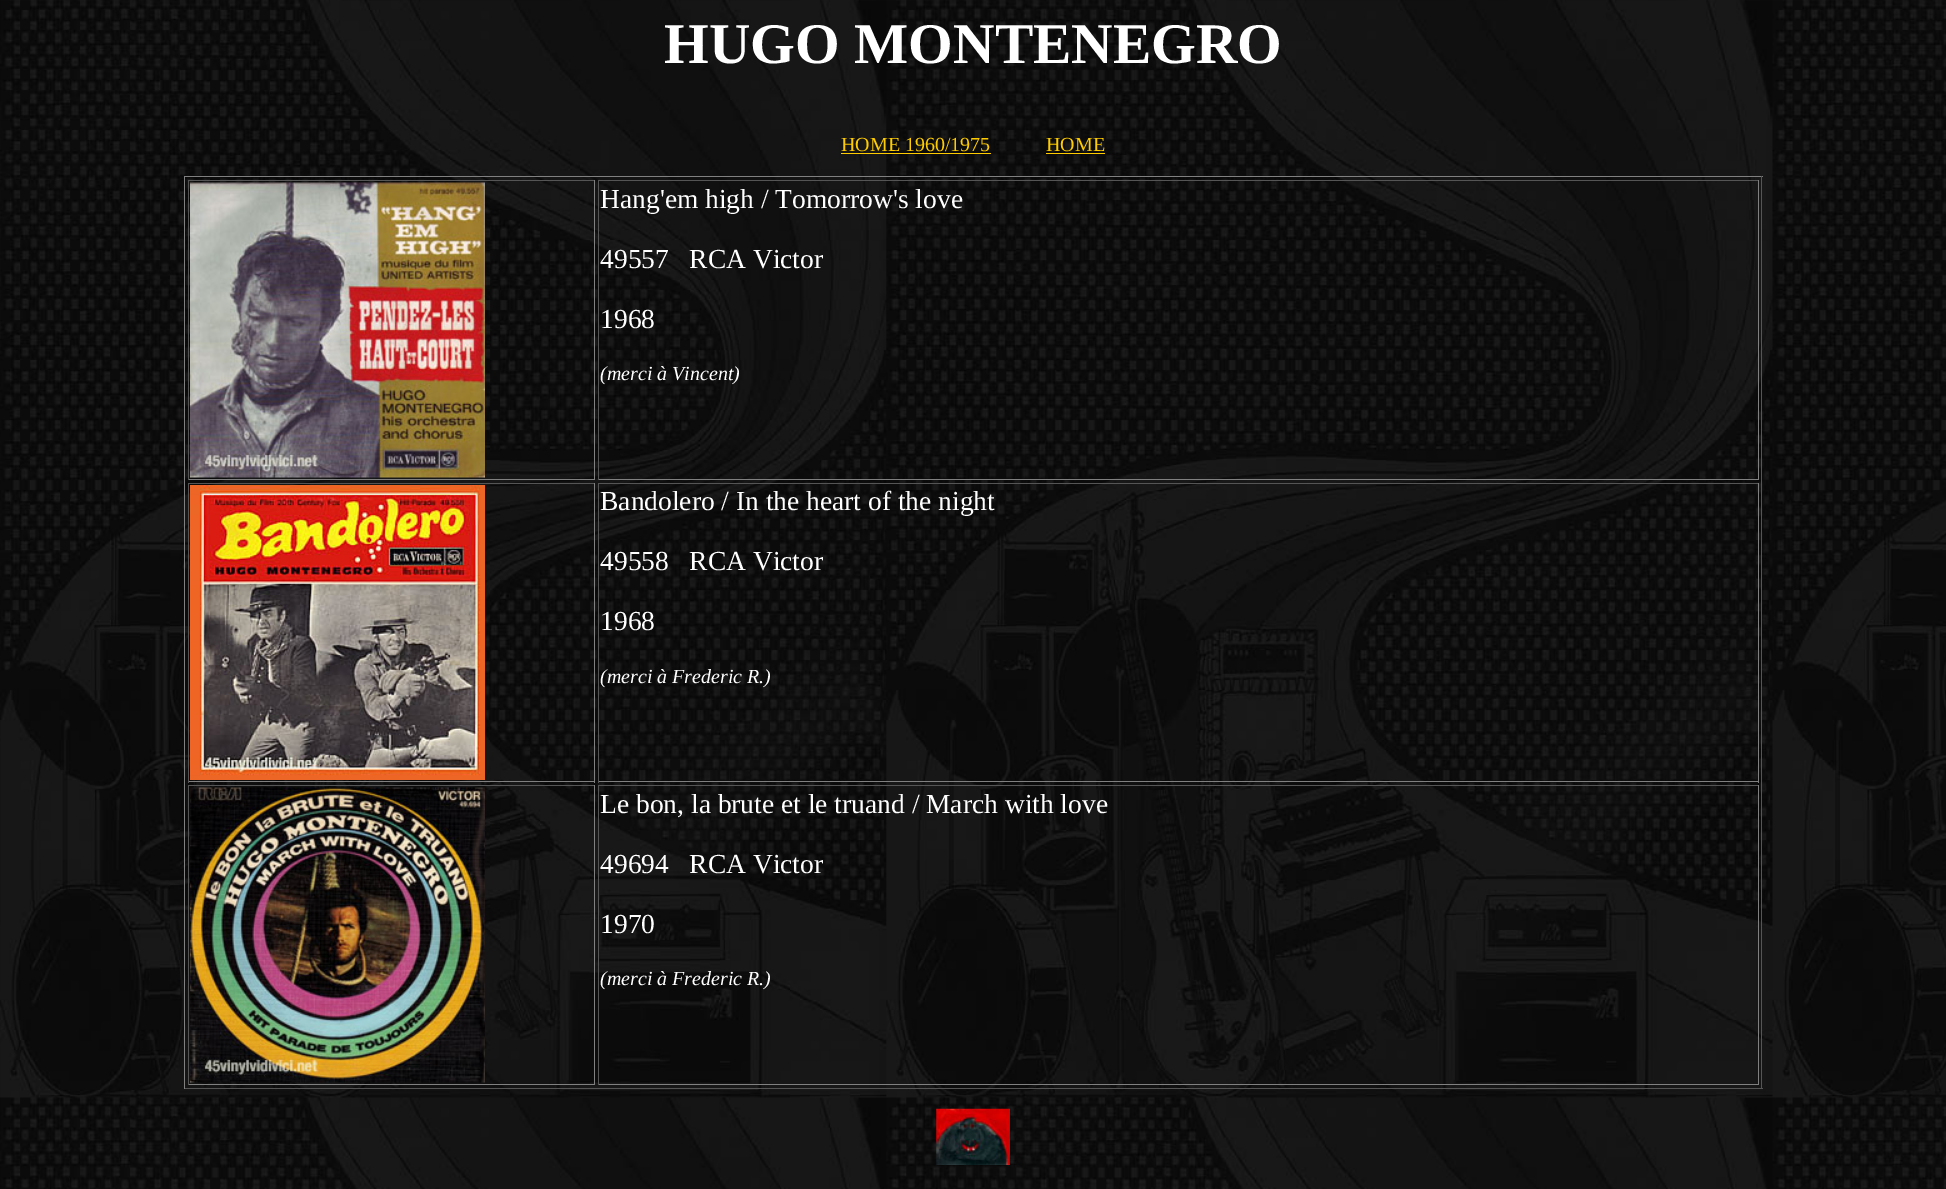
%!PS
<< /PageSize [1946 1189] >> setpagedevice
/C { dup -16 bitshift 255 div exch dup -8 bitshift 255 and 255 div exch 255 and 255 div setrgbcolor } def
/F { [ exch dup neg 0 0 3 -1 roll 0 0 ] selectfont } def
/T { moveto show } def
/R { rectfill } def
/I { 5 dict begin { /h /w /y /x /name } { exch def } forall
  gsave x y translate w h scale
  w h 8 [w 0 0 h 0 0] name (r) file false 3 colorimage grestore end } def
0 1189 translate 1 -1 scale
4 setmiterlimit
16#FFFFFF C
0 0 1946 1189 R
(1.rgb) 0 0 1946 1189 I
/LiberationSerif-Bold 57.5 F
(HUGO MONTENEGRO) 664 63 T
/LiberationSerif-Regular 20 F
16#FFCC00 C
(HOME 1960/1975) 841 151 T
841 153 150 1 R
(HOME) 1046 151 T
1046 153 59 1 R
16#808080 C
184 176 1579 1 R
16#555555 C
1761 176 1 913 R
184 1088 1579 1 R
16#808080 C
184 176 1 913 R
16#555555 C
188 180 407 1 R
16#808080 C
594 180 1 300 R
188 479 407 1 R
16#555555 C
188 180 1 300 R
(2.rgb) 190 182 295 296 I
598 180 1161 1 R
16#808080 C
1758 180 1 300 R
598 479 1161 1 R
16#555555 C
598 180 1 300 R
/LiberationSerif-Regular 27.5 F
16#FFFFFF C
(Hang'em high / Tomorrow's love) 600 208 T
(49557   RCA Victor) 600 268 T
(1968) 600 328 T
/LiberationSerif-Italic 20 F
(\(merci à Vincent\)) 600 380 T
16#555555 C
188 483 407 1 R
16#808080 C
594 483 1 300 R
188 781 407 1 R
16#555555 C
188 483 1 300 R
(3.rgb) 190 485 295 295 I
598 483 1161 1 R
16#808080 C
1758 483 1 300 R
598 781 1161 1 R
16#555555 C
598 483 1 300 R
/LiberationSerif-Regular 27.5 F
16#FFFFFF C
(Bandolero / In the heart of the night) 600 510 T
(49558   RCA Victor) 600 570 T
(1968) 600 630 T
/LiberationSerif-Italic 20 F
(\(merci à Frederic R.\)) 600 683 T
16#555555 C
188 785 407 1 R
16#808080 C
594 785 1 300 R
188 1084 407 1 R
16#555555 C
188 785 1 300 R
(4.rgb) 190 787 295 296 I
598 785 1161 1 R
16#808080 C
1758 785 1 300 R
598 1084 1161 1 R
16#555555 C
598 785 1 300 R
/LiberationSerif-Regular 27.5 F
16#FFFFFF C
(Le bon, la brute et le truand / March with love) 600 813 T
(49694   RCA Victor) 600 873 T
(1970) 600 933 T
/LiberationSerif-Italic 20 F
(\(merci à Frederic R.\)) 600 985 T
(5.rgb) 936 1108 74 57 I
showpage
